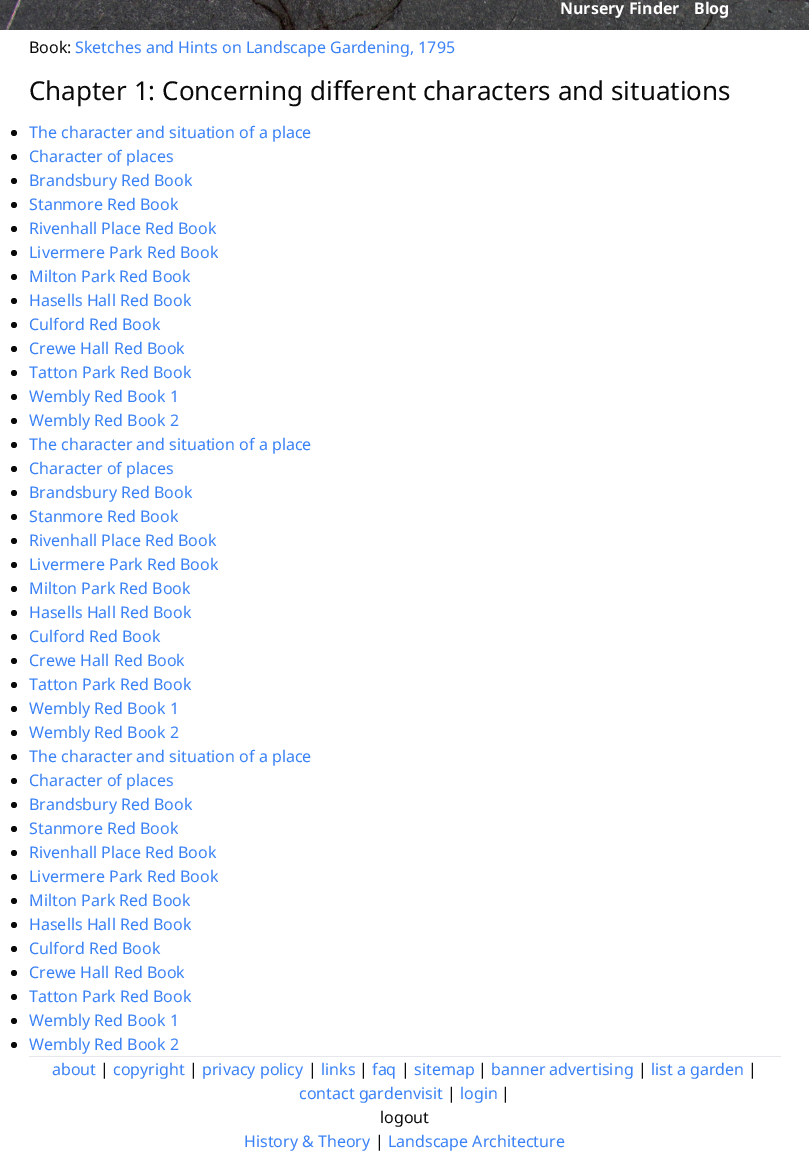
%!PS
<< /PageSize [809 1160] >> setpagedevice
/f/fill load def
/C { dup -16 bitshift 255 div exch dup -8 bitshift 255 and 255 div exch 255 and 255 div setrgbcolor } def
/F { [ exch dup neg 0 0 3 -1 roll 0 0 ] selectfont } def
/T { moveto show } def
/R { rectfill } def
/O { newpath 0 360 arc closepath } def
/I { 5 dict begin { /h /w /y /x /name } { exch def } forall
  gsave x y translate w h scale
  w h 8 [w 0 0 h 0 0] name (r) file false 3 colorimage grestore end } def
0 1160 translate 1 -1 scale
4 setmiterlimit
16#FFFFFF C
0 0 809 1160 R
(1.rgb) 0 0 809 30 I
/NotoSans-Bold 16 F
(Nursery Finder) 560 14 T
(Blog) 694 14 T
/NotoSans-Regular 16 F
16#0A0A0A C
(Book:) 29 53 T
16#3B82F6 C
(Sketches and Hints on Landscape Gardening, 1795) 75 53 T
/NotoSans-Regular 26 F
16#0A0A0A C
(Chapter 1: Concerning different characters and situations) 29 100 T
14 133 3 O f
/NotoSans-Regular 16 F
16#3B82F6 C
(The character and situation of a place) 29 138 T
16#0A0A0A C
14 157 3 O f
16#3B82F6 C
(Character of places) 29 162 T
16#0A0A0A C
14 181 3 O f
16#3B82F6 C
(Brandsbury Red Book) 29 186 T
16#0A0A0A C
14 205 3 O f
16#3B82F6 C
(Stanmore Red Book) 29 210 T
16#0A0A0A C
14 229 3 O f
16#3B82F6 C
(Rivenhall Place Red Book) 29 234 T
16#0A0A0A C
14 253 3 O f
16#3B82F6 C
(Livermere Park Red Book) 29 258 T
16#0A0A0A C
14 277 3 O f
16#3B82F6 C
(Milton Park Red Book) 29 282 T
16#0A0A0A C
14 301 3 O f
16#3B82F6 C
(Hasells Hall Red Book) 29 306 T
16#0A0A0A C
14 325 3 O f
16#3B82F6 C
(Culford Red Book) 29 330 T
16#0A0A0A C
14 349 3 O f
16#3B82F6 C
(Crewe Hall Red Book) 29 354 T
16#0A0A0A C
14 373 3 O f
16#3B82F6 C
(Tatton Park Red Book) 29 378 T
16#0A0A0A C
14 397 3 O f
16#3B82F6 C
(Wembly Red Book 1) 29 402 T
16#0A0A0A C
14 421 3 O f
16#3B82F6 C
(Wembly Red Book 2) 29 426 T
16#0A0A0A C
14 445 3 O f
16#3B82F6 C
(The character and situation of a place) 29 450 T
16#0A0A0A C
14 469 3 O f
16#3B82F6 C
(Character of places) 29 474 T
16#0A0A0A C
14 493 3 O f
16#3B82F6 C
(Brandsbury Red Book) 29 498 T
16#0A0A0A C
14 517 3 O f
16#3B82F6 C
(Stanmore Red Book) 29 522 T
16#0A0A0A C
14 541 3 O f
16#3B82F6 C
(Rivenhall Place Red Book) 29 546 T
16#0A0A0A C
14 565 3 O f
16#3B82F6 C
(Livermere Park Red Book) 29 570 T
16#0A0A0A C
14 589 3 O f
16#3B82F6 C
(Milton Park Red Book) 29 594 T
16#0A0A0A C
14 613 3 O f
16#3B82F6 C
(Hasells Hall Red Book) 29 618 T
16#0A0A0A C
14 637 3 O f
16#3B82F6 C
(Culford Red Book) 29 642 T
16#0A0A0A C
14 661 3 O f
16#3B82F6 C
(Crewe Hall Red Book) 29 666 T
16#0A0A0A C
14 685 3 O f
16#3B82F6 C
(Tatton Park Red Book) 29 690 T
16#0A0A0A C
14 709 3 O f
16#3B82F6 C
(Wembly Red Book 1) 29 714 T
16#0A0A0A C
14 733 3 O f
16#3B82F6 C
(Wembly Red Book 2) 29 738 T
16#0A0A0A C
14 757 3 O f
16#3B82F6 C
(The character and situation of a place) 29 762 T
16#0A0A0A C
14 781 3 O f
16#3B82F6 C
(Character of places) 29 786 T
16#0A0A0A C
14 805 3 O f
16#3B82F6 C
(Brandsbury Red Book) 29 810 T
16#0A0A0A C
14 829 3 O f
16#3B82F6 C
(Stanmore Red Book) 29 834 T
16#0A0A0A C
14 853 3 O f
16#3B82F6 C
(Rivenhall Place Red Book) 29 858 T
16#0A0A0A C
14 877 3 O f
16#3B82F6 C
(Livermere Park Red Book) 29 882 T
16#0A0A0A C
14 901 3 O f
16#3B82F6 C
(Milton Park Red Book) 29 906 T
16#0A0A0A C
14 925 3 O f
16#3B82F6 C
(Hasells Hall Red Book) 29 930 T
16#0A0A0A C
14 949 3 O f
16#3B82F6 C
(Culford Red Book) 29 954 T
16#0A0A0A C
14 973 3 O f
16#3B82F6 C
(Crewe Hall Red Book) 29 978 T
16#0A0A0A C
14 997 3 O f
16#3B82F6 C
(Tatton Park Red Book) 29 1002 T
16#0A0A0A C
14 1021 3 O f
16#3B82F6 C
(Wembly Red Book 1) 29 1026 T
16#0A0A0A C
14 1045 3 O f
16#3B82F6 C
(Wembly Red Book 2) 29 1050 T
16#E5E7EB C
29 1056 752 1 R
16#3B82F6 C
(about) 52 1075 T
16#0A0A0A C
(|) 100 1075 T
16#3B82F6 C
(copyright) 113 1075 T
16#0A0A0A C
(|) 189 1075 T
16#3B82F6 C
(privacy policy) 202 1075 T
16#0A0A0A C
(|) 308 1075 T
16#3B82F6 C
(links) 321 1075 T
16#0A0A0A C
(|) 359 1075 T
16#3B82F6 C
(faq) 372 1075 T
16#0A0A0A C
(|) 401 1075 T
16#3B82F6 C
(sitemap) 414 1075 T
16#0A0A0A C
(|) 478 1075 T
16#3B82F6 C
(banner advertising) 491 1075 T
16#0A0A0A C
(|) 638 1075 T
16#3B82F6 C
(list a garden) 651 1075 T
16#0A0A0A C
(|) 748 1075 T
16#3B82F6 C
(contact gardenvisit) 299 1099 T
16#0A0A0A C
(|) 447 1099 T
16#3B82F6 C
(login) 460 1099 T
16#0A0A0A C
(|) 501 1099 T
(logout) 380 1123 T
16#3B82F6 C
(History & Theory) 244 1147 T
16#0A0A0A C
(|) 375 1147 T
16#3B82F6 C
(Landscape Architecture) 388 1147 T
showpage
